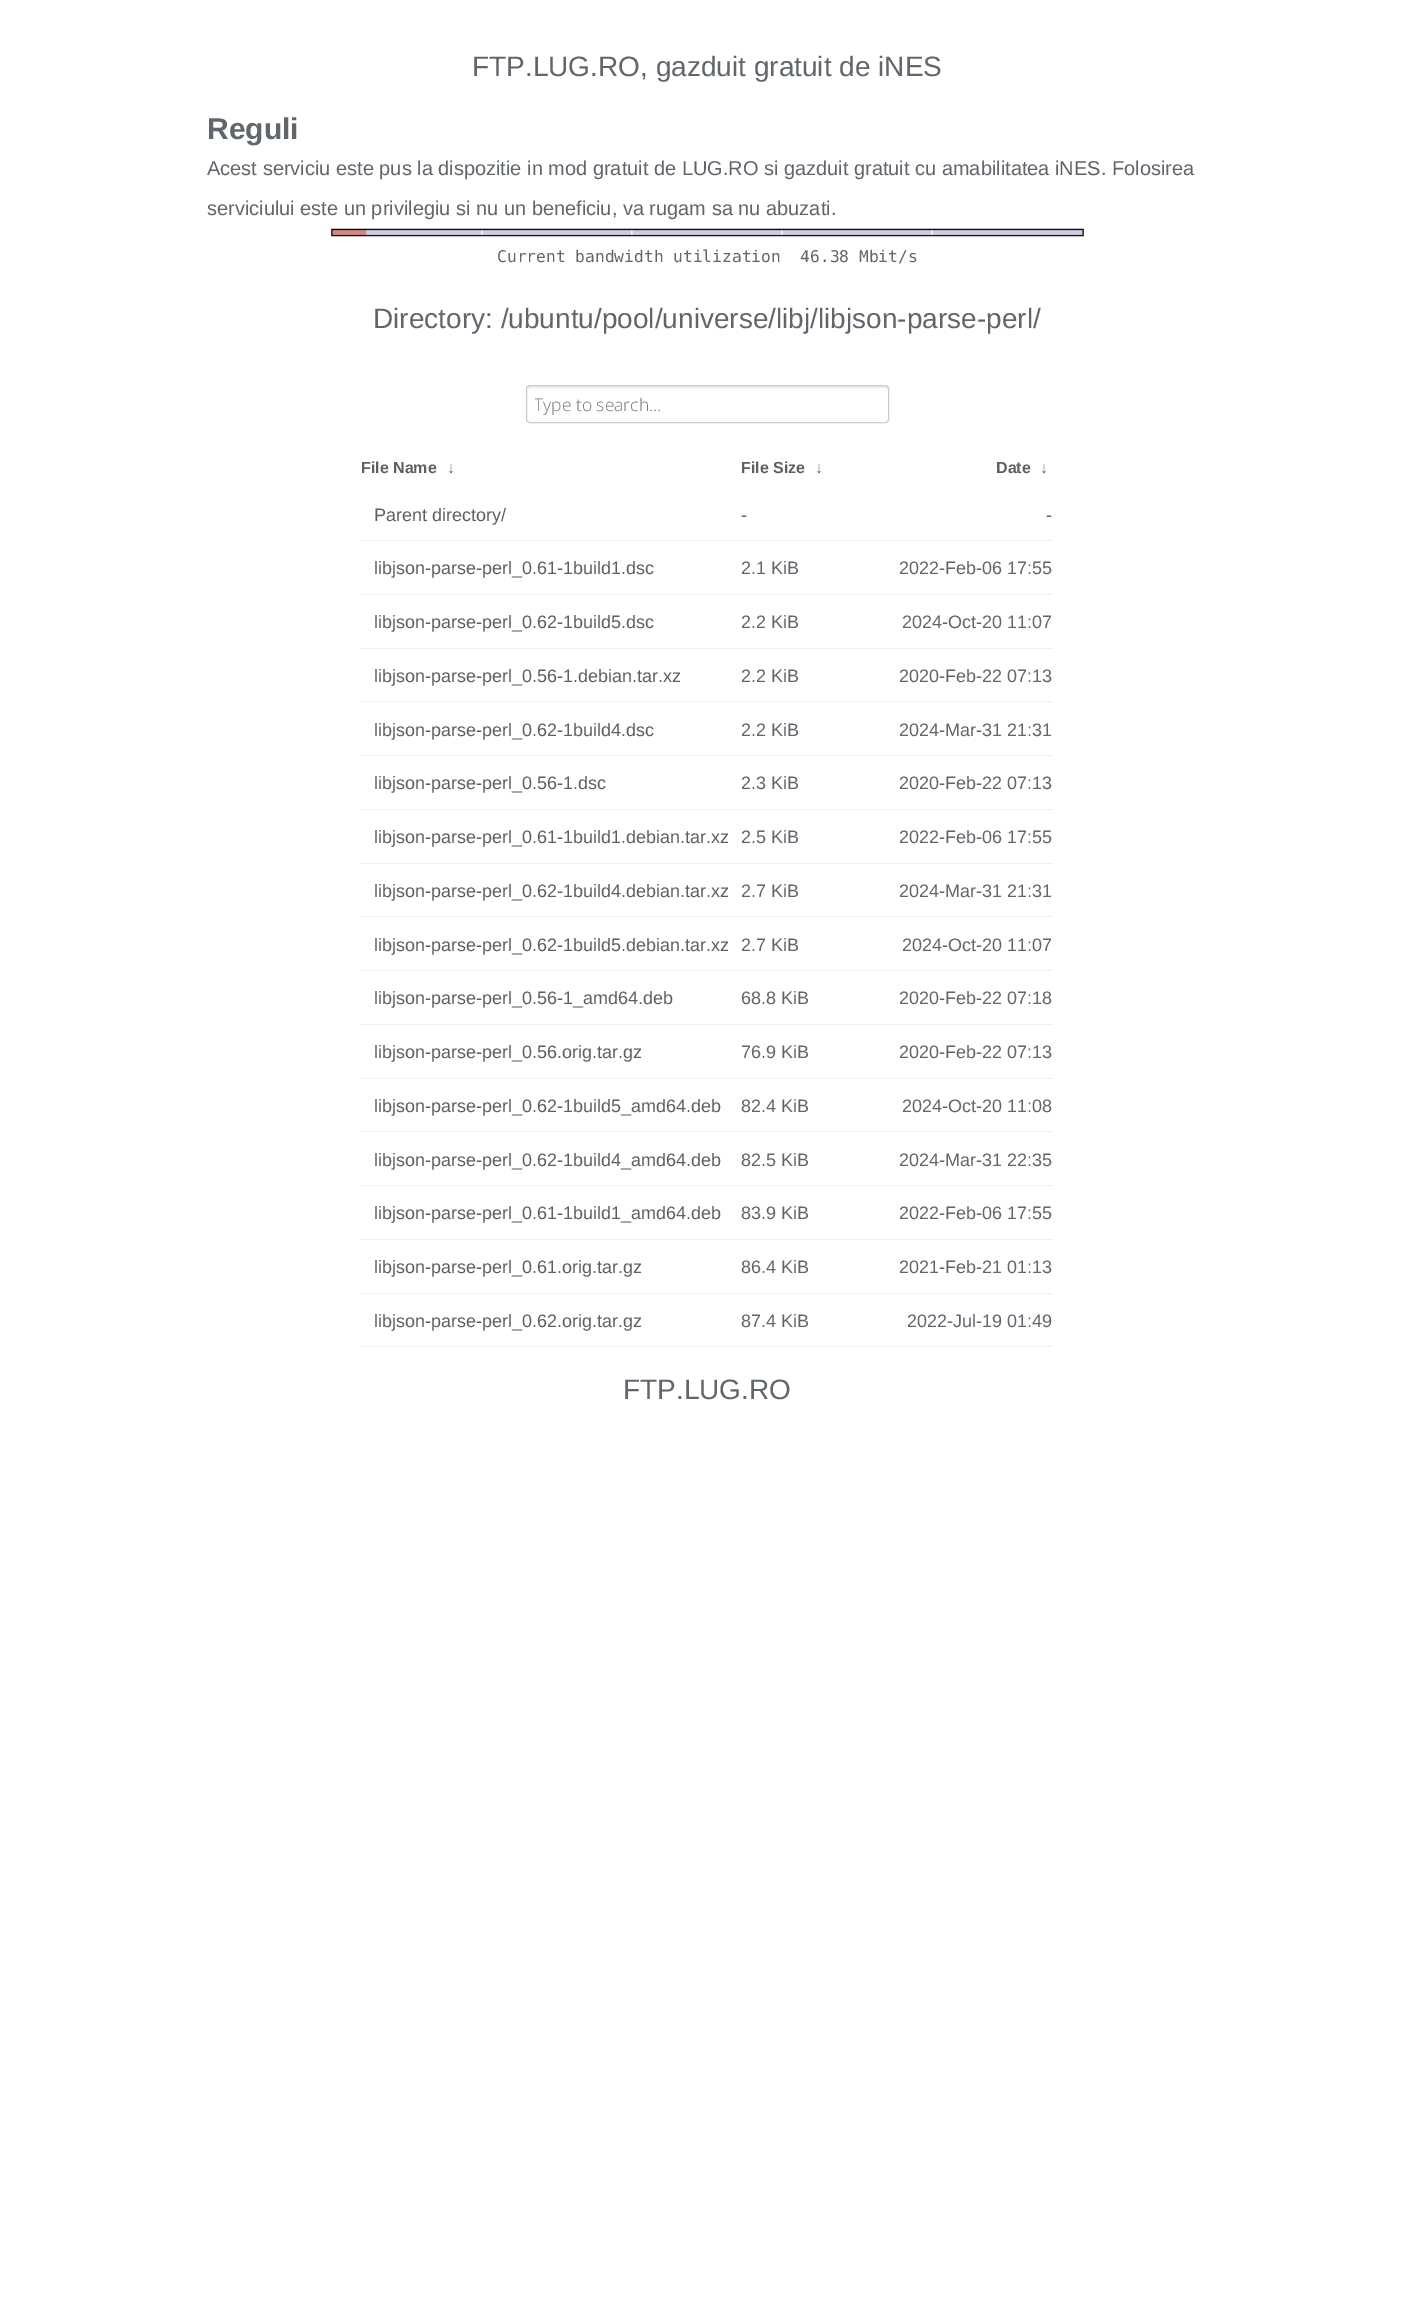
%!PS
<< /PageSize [1413 2313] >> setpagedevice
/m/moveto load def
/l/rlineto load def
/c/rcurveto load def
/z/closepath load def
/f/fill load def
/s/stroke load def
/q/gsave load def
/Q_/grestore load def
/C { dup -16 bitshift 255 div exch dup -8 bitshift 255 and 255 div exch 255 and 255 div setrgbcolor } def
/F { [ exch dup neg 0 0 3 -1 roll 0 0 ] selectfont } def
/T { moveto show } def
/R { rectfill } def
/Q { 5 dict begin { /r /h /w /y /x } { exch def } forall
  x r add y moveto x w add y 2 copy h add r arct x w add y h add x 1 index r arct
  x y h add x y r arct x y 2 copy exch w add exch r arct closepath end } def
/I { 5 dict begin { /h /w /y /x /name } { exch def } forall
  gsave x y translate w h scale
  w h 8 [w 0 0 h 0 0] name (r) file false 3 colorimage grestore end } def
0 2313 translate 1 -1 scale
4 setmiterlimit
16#FFFFFF C
0 0 1413 2313 R
/LiberationSans-Regular 28 F
16#61666C C
(FTP.LUG.RO, gazduit gratuit de iNES) 472 76 T
/LiberationSans-Bold 30 F
(Reguli) 207 139 T
/LiberationSans-Regular 20 F
(Acest serviciu este pus la dispozitie in mod gratuit de LUG.RO si gazduit gratuit cu amabilitatea) 207 175 T
16#5F5F5F C
(iNES) 1055 175 T
16#61666C C
(. Folosirea) 1101 175 T
(serviciului este un privilegiu si nu un beneficiu, va rugam sa nu abuzati.) 207 215 T
(1.rgb) 331 228 753 9 I
/DejaVuSansMono-Regular 16.25 F
(Current bandwidth utilization  46.38 Mbit/s) 497 262 T
/LiberationSans-Regular 28 F
(Directory: /ubuntu/pool/universe/libj/libjson-parse-perl/) 373 328 T
16#ECECEC C
530 388 m 355 0 l 1 0 3 1 3 2 c 0 -2 0 -4 -2 -4 c -356 0 l -2 0 -2 2 -2 4 c 0 -1 1 -2 2 -2 c z f
16#CCCCCC C
526.5 385.5 362 37 3.5 Q s
q
535 391 313 24 rectclip
/OpenSans-Light 17.5 F
16#757575 C
(Type to search...) 534 411 T
Q_
/LiberationSans-Bold 16 F
16#5F5F5F C
(File Name) 361 473 T
(↓) 447 473 T
(File Size) 741 473 T
(↓) 815 473 T
(Date) 996 473 T
(↓) 1040 473 T
/LiberationSans-Regular 18 F
(Parent directory/) 374 521 T
16#61666C C
(-) 741 521 T
16#EDF1F5 C
361 540 692 1 R
16#61666C C
(-) 1046 521 T
16#5F5F5F C
(libjson-parse-perl_0.61-1build1.dsc) 374 574 T
16#61666C C
(2.1 KiB) 741 574 T
16#EDF1F5 C
361 594 692 1 R
16#61666C C
(2022-Feb-06 17:55) 899 574 T
16#5F5F5F C
(libjson-parse-perl_0.62-1build5.dsc) 374 628 T
16#61666C C
(2.2 KiB) 741 628 T
16#EDF1F5 C
361 648 692 1 R
16#61666C C
(2024-Oct-20 11:07) 902 628 T
16#5F5F5F C
(libjson-parse-perl_0.56-1.debian.tar.xz) 374 682 T
16#61666C C
(2.2 KiB) 741 682 T
16#EDF1F5 C
361 701 692 1 R
16#61666C C
(2020-Feb-22 07:13) 899 682 T
16#5F5F5F C
(libjson-parse-perl_0.62-1build4.dsc) 374 736 T
16#61666C C
(2.2 KiB) 741 736 T
16#EDF1F5 C
361 755 692 1 R
16#61666C C
(2024-Mar-31 21:31) 899 736 T
16#5F5F5F C
(libjson-parse-perl_0.56-1.dsc) 374 789 T
16#61666C C
(2.3 KiB) 741 789 T
16#EDF1F5 C
361 809 692 1 R
16#61666C C
(2020-Feb-22 07:13) 899 789 T
16#5F5F5F C
(libjson-parse-perl_0.61-1build1.debian.tar.xz) 374 843 T
16#61666C C
(2.5 KiB) 741 843 T
16#EDF1F5 C
361 863 692 1 R
16#61666C C
(2022-Feb-06 17:55) 899 843 T
16#5F5F5F C
(libjson-parse-perl_0.62-1build4.debian.tar.xz) 374 897 T
16#61666C C
(2.7 KiB) 741 897 T
16#EDF1F5 C
361 916 692 1 R
16#61666C C
(2024-Mar-31 21:31) 899 897 T
16#5F5F5F C
(libjson-parse-perl_0.62-1build5.debian.tar.xz) 374 951 T
16#61666C C
(2.7 KiB) 741 951 T
16#EDF1F5 C
361 970 692 1 R
16#61666C C
(2024-Oct-20 11:07) 902 951 T
16#5F5F5F C
(libjson-parse-perl_0.56-1_amd64.deb) 374 1004 T
16#61666C C
(68.8 KiB) 741 1004 T
16#EDF1F5 C
361 1024 692 1 R
16#61666C C
(2020-Feb-22 07:18) 899 1004 T
16#5F5F5F C
(libjson-parse-perl_0.56.orig.tar.gz) 374 1058 T
16#61666C C
(76.9 KiB) 741 1058 T
16#EDF1F5 C
361 1078 692 1 R
16#61666C C
(2020-Feb-22 07:13) 899 1058 T
16#5F5F5F C
(libjson-parse-perl_0.62-1build5_amd64.deb) 374 1112 T
16#61666C C
(82.4 KiB) 741 1112 T
16#EDF1F5 C
361 1131 692 1 R
16#61666C C
(2024-Oct-20 11:08) 902 1112 T
16#5F5F5F C
(libjson-parse-perl_0.62-1build4_amd64.deb) 374 1166 T
16#61666C C
(82.5 KiB) 741 1166 T
16#EDF1F5 C
361 1185 692 1 R
16#61666C C
(2024-Mar-31 22:35) 899 1166 T
16#5F5F5F C
(libjson-parse-perl_0.61-1build1_amd64.deb) 374 1219 T
16#61666C C
(83.9 KiB) 741 1219 T
16#EDF1F5 C
361 1239 692 1 R
16#61666C C
(2022-Feb-06 17:55) 899 1219 T
16#5F5F5F C
(libjson-parse-perl_0.61.orig.tar.gz) 374 1273 T
16#61666C C
(86.4 KiB) 741 1273 T
16#EDF1F5 C
361 1293 692 1 R
16#61666C C
(2021-Feb-21 01:13) 899 1273 T
16#5F5F5F C
(libjson-parse-perl_0.62.orig.tar.gz) 374 1327 T
16#61666C C
(87.4 KiB) 741 1327 T
16#EDF1F5 C
361 1346 692 1 R
16#61666C C
(2022-Jul-19 01:49) 907 1327 T
/LiberationSans-Regular 28 F
(FTP.LUG.RO) 623 1399 T
showpage
